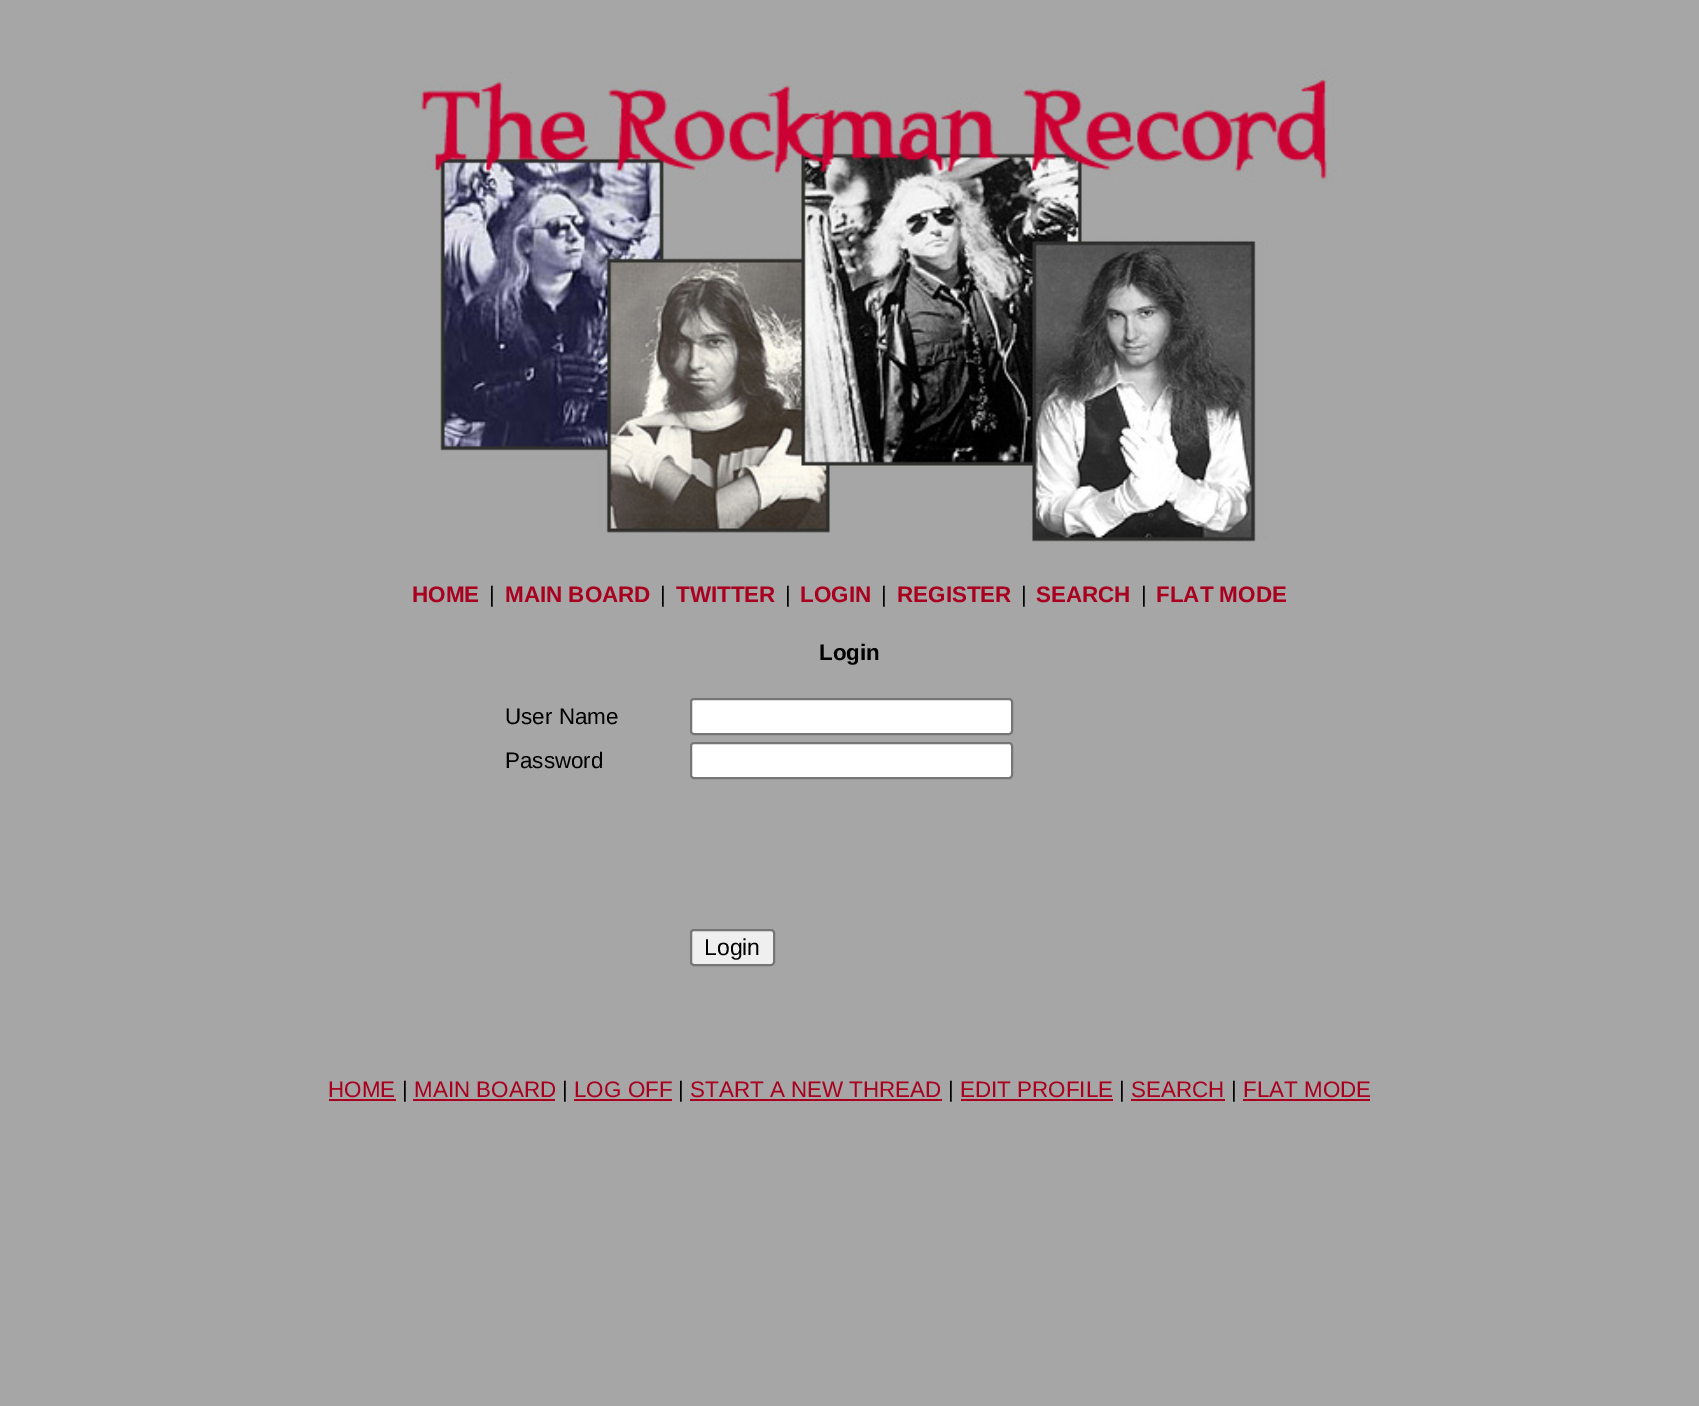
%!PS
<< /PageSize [1699 1406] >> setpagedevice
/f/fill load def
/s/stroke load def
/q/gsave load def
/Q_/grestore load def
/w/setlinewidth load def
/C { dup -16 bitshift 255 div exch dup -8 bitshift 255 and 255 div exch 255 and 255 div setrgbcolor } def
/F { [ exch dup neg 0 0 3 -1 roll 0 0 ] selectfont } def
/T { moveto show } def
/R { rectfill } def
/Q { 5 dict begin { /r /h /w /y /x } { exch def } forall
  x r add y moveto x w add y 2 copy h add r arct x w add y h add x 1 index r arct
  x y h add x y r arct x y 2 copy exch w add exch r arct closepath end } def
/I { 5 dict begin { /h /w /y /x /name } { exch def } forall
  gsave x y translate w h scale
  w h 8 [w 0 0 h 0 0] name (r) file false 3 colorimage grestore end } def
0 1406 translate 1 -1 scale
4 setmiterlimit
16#A6A6A6 C
0 0 1699 1406 R
(1.rgb) 413 70 924 472 I
/LiberationSans-Bold 22.4 F
16#A8001E C
(HOME) 412 602 T
/LiberationSans-Regular 22.4 F
16#000000 C
(|) 489 602 T
/LiberationSans-Bold 22.4 F
16#A8001E C
(MAIN BOARD) 505 602 T
/LiberationSans-Regular 22.4 F
16#000000 C
(|) 660 602 T
/LiberationSans-Bold 22.4 F
16#A8001E C
(TWITTER) 676 602 T
/LiberationSans-Regular 22.4 F
16#000000 C
(|) 785 602 T
/LiberationSans-Bold 22.4 F
16#A8001E C
(LOGIN) 800 602 T
/LiberationSans-Regular 22.4 F
16#000000 C
(|) 881 602 T
/LiberationSans-Bold 22.4 F
16#A8001E C
(REGISTER) 897 602 T
/LiberationSans-Regular 22.4 F
16#000000 C
(|) 1021 602 T
/LiberationSans-Bold 22.4 F
16#A8001E C
(SEARCH) 1036 602 T
/LiberationSans-Regular 22.4 F
16#000000 C
(|) 1141 602 T
/LiberationSans-Bold 22.4 F
16#A8001E C
(FLAT MODE) 1156 602 T
16#000000 C
(Login) 819 660 T
/LiberationSans-Regular 22.4 F
(User Name) 505 724 T
16#FFFFFF C
691 699 321 35 3 Q q f Q_
16#767676 C
2 w
s
16#000000 C
(Password) 505 768 T
16#FFFFFF C
691 743 321 35 3 Q q f Q_
16#767676 C
s
16#EFEFEF C
691 930 83 35 3 Q q f Q_
16#767676 C
s
/LiberationSans-Regular 23 F
16#000000 C
(Login) 704 955 T
/LiberationSans-Regular 22.4 F
16#A8001E C
(HOME) 328 1097 T
329 1099 67 2 R
16#000000 C
(|) 402 1097 T
16#A8001E C
(MAIN BOARD) 414 1097 T
413 1099 142 2 R
16#000000 C
(|) 562 1097 T
16#A8001E C
(LOG OFF) 574 1097 T
574 1099 98 2 R
16#000000 C
(|) 678 1097 T
16#A8001E C
(START A NEW THREAD) 690 1097 T
690 1099 252 2 R
16#000000 C
(|) 948 1097 T
16#A8001E C
(EDIT PROFILE) 960 1097 T
961 1099 152 2 R
16#000000 C
(|) 1119 1097 T
16#A8001E C
(SEARCH) 1131 1097 T
1131 1099 94 2 R
16#000000 C
(|) 1231 1097 T
16#A8001E C
(FLAT MODE) 1243 1097 T
1243 1099 127 2 R
showpage
